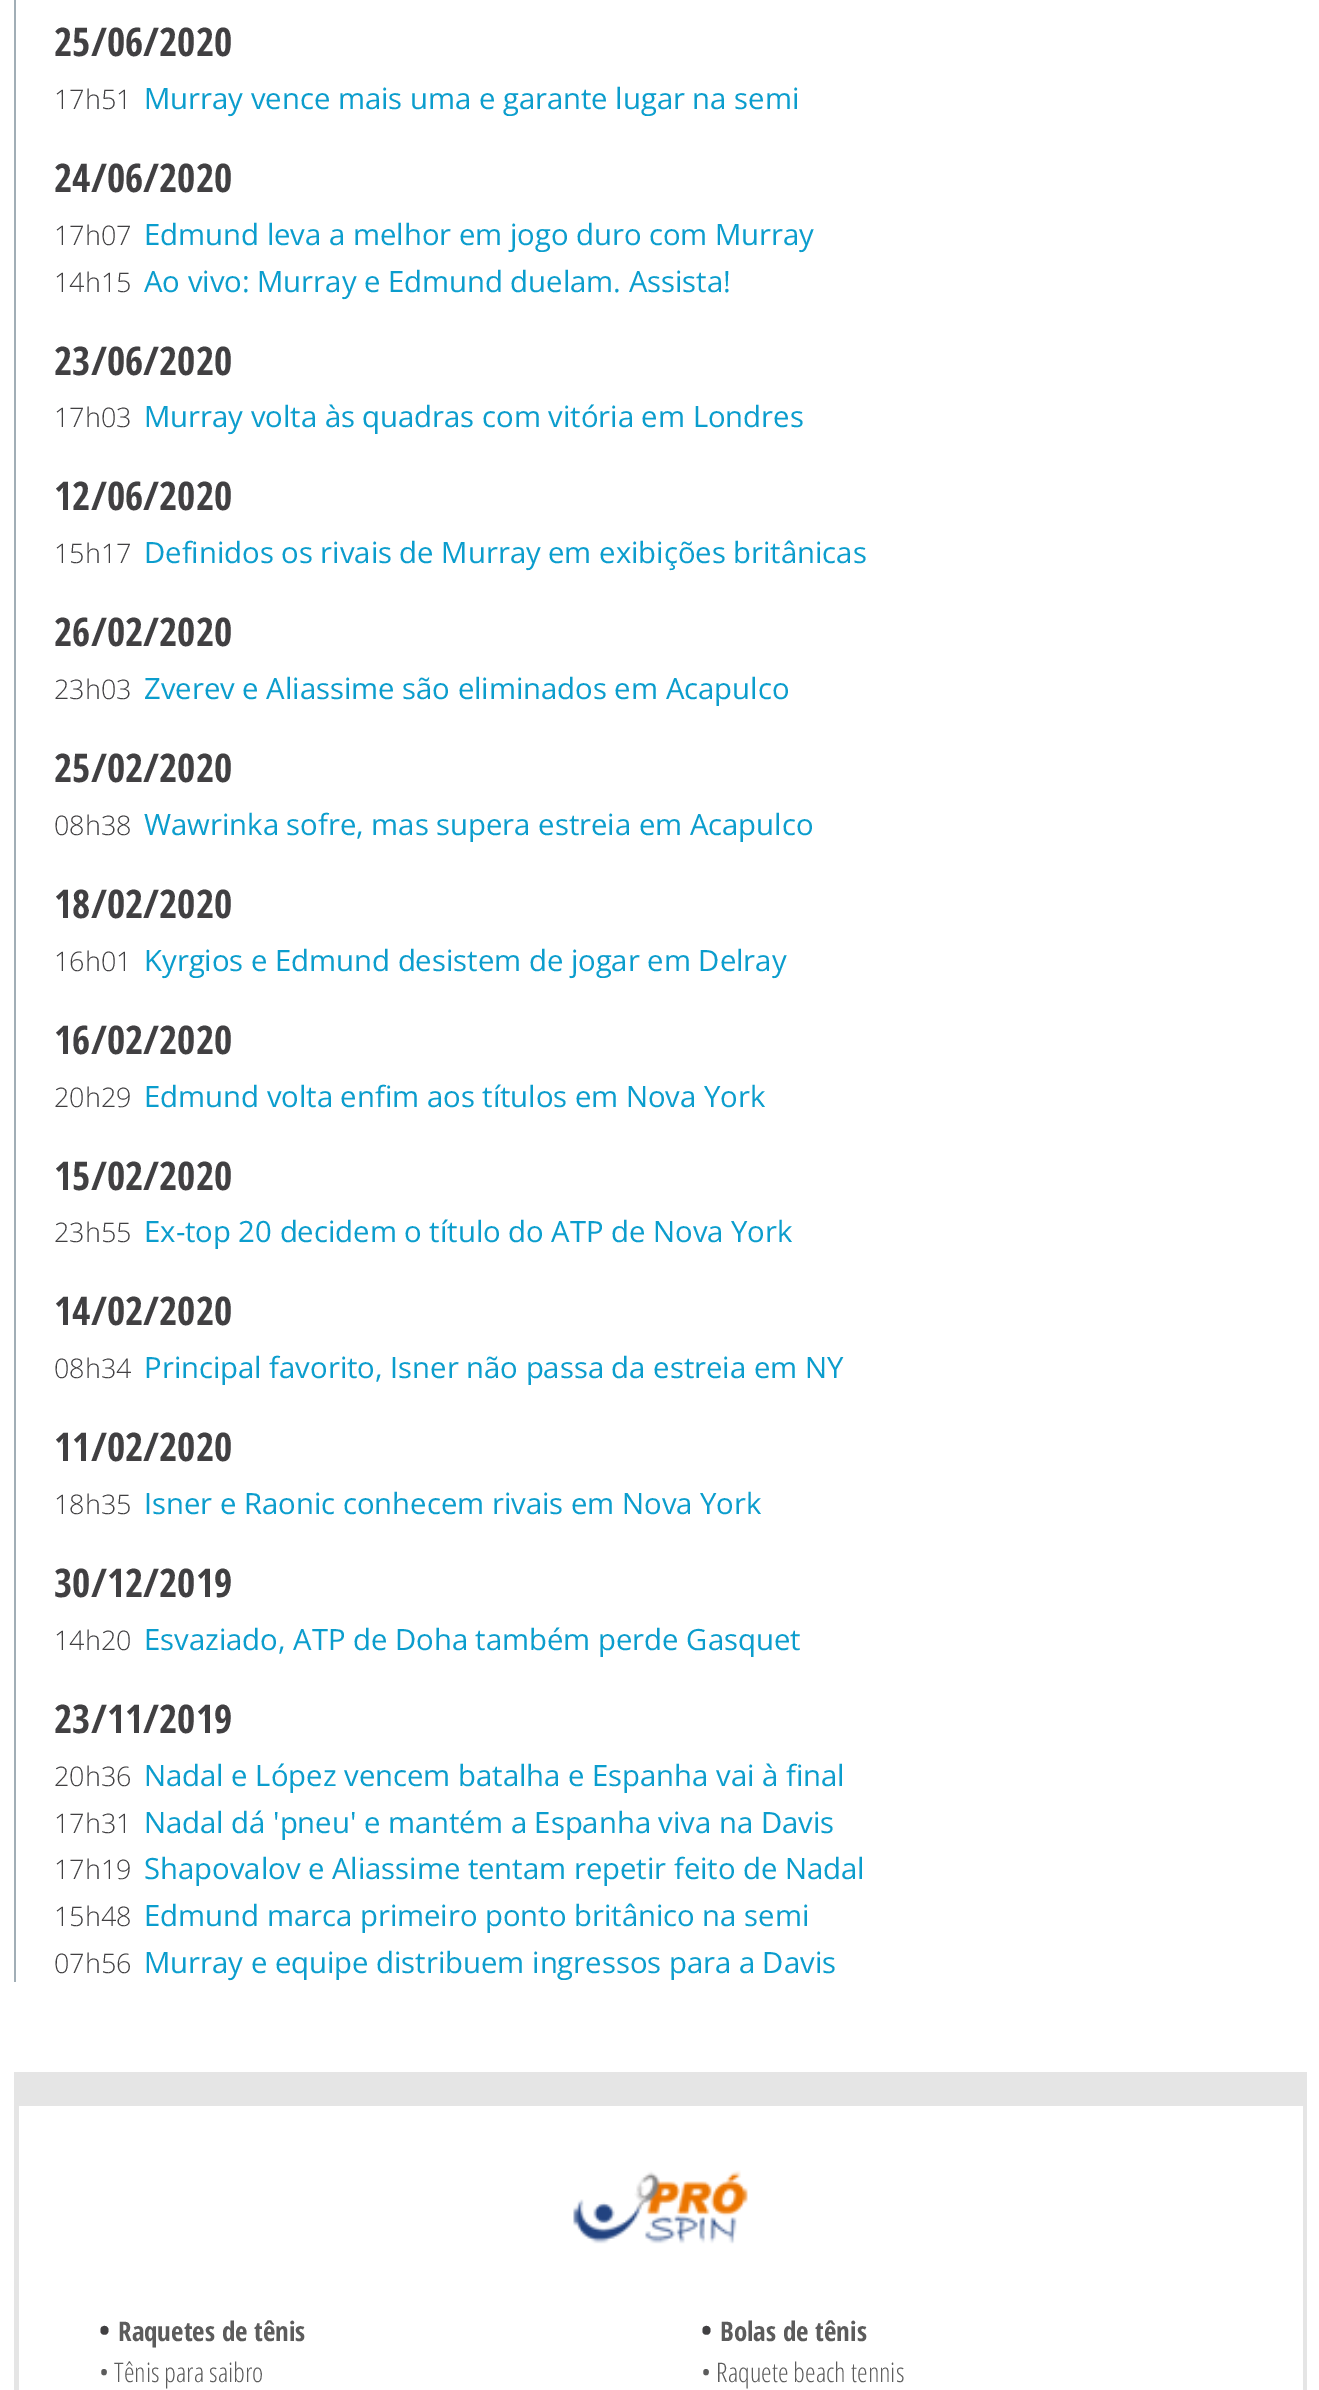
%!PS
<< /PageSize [1319 2390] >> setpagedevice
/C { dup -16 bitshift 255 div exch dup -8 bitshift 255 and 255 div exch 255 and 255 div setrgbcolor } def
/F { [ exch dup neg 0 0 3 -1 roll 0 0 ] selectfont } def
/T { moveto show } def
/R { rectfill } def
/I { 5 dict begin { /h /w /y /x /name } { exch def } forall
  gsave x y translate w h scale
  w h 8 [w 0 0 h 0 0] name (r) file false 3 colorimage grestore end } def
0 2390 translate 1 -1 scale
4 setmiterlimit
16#FFFFFF C
0 0 1319 2390 R
16#A1AEB6 C
14 0 2 1982 R
/OpenSansCondensed-Bold 39.5 F
16#414042 C
(25/06/2020) 54 56 T
/OpenSans-Light 27 F
(17h51) 54 109 T
/OpenSans-Regular 29.25 F
16#0B9DCD C
(Murray vence mais uma e garante lugar na semi) 144 109 T
/OpenSansCondensed-Bold 39.5 F
16#414042 C
(24/06/2020) 54 192 T
/OpenSans-Light 27 F
(17h07) 54 245 T
/OpenSans-Regular 29.25 F
16#0B9DCD C
(Edmund leva a melhor em jogo duro com Murray) 144 245 T
/OpenSans-Light 27 F
16#414042 C
(14h15) 54 292 T
/OpenSans-Regular 29.25 F
16#0B9DCD C
(Ao vivo: Murray e Edmund duelam. Assista!) 144 292 T
/OpenSansCondensed-Bold 39.5 F
16#414042 C
(23/06/2020) 54 375 T
/OpenSans-Light 27 F
(17h03) 54 427 T
/OpenSans-Regular 29.25 F
16#0B9DCD C
(Murray volta às quadras com vitória em Londres) 144 427 T
/OpenSansCondensed-Bold 39.5 F
16#414042 C
(12/06/2020) 54 510 T
/OpenSans-Light 27 F
(15h17) 54 563 T
/OpenSans-Regular 29.25 F
16#0B9DCD C
(Definidos os rivais de Murray em exibições britânicas) 144 563 T
/OpenSansCondensed-Bold 39.5 F
16#414042 C
(26/02/2020) 54 646 T
/OpenSans-Light 27 F
(23h03) 54 699 T
/OpenSans-Regular 29.25 F
16#0B9DCD C
(Zverev e Aliassime são eliminados em Acapulco) 144 699 T
/OpenSansCondensed-Bold 39.5 F
16#414042 C
(25/02/2020) 54 782 T
/OpenSans-Light 27 F
(08h38) 54 835 T
/OpenSans-Regular 29.25 F
16#0B9DCD C
(Wawrinka sofre, mas supera estreia em Acapulco) 144 835 T
/OpenSansCondensed-Bold 39.5 F
16#414042 C
(18/02/2020) 54 918 T
/OpenSans-Light 27 F
(16h01) 54 971 T
/OpenSans-Regular 29.25 F
16#0B9DCD C
(Kyrgios e Edmund desistem de jogar em Delray) 144 971 T
/OpenSansCondensed-Bold 39.5 F
16#414042 C
(16/02/2020) 54 1054 T
/OpenSans-Light 27 F
(20h29) 54 1107 T
/OpenSans-Regular 29.25 F
16#0B9DCD C
(Edmund volta enfim aos títulos em Nova York) 144 1107 T
/OpenSansCondensed-Bold 39.5 F
16#414042 C
(15/02/2020) 54 1190 T
/OpenSans-Light 27 F
(23h55) 54 1242 T
/OpenSans-Regular 29.25 F
16#0B9DCD C
(Ex-top 20 decidem o título do ATP de Nova York) 144 1242 T
/OpenSansCondensed-Bold 39.5 F
16#414042 C
(14/02/2020) 54 1325 T
/OpenSans-Light 27 F
(08h34) 54 1378 T
/OpenSans-Regular 29.25 F
16#0B9DCD C
(Principal favorito, Isner não passa da estreia em NY) 144 1378 T
/OpenSansCondensed-Bold 39.5 F
16#414042 C
(11/02/2020) 54 1461 T
/OpenSans-Light 27 F
(18h35) 54 1514 T
/OpenSans-Regular 29.25 F
16#0B9DCD C
(Isner e Raonic conhecem rivais em Nova York) 144 1514 T
/OpenSansCondensed-Bold 39.5 F
16#414042 C
(30/12/2019) 54 1597 T
/OpenSans-Light 27 F
(14h20) 54 1650 T
/OpenSans-Regular 29.25 F
16#0B9DCD C
(Esvaziado, ATP de Doha também perde Gasquet) 144 1650 T
/OpenSansCondensed-Bold 39.5 F
16#414042 C
(23/11/2019) 54 1733 T
/OpenSans-Light 27 F
(20h36) 54 1786 T
/OpenSans-Regular 29.25 F
16#0B9DCD C
(Nadal e López vencem batalha e Espanha vai à final) 144 1786 T
/OpenSans-Light 27 F
16#414042 C
(17h31) 54 1833 T
/OpenSans-Regular 29.25 F
16#0B9DCD C
(Nadal dá 'pneu' e mantém a Espanha viva na Davis) 144 1833 T
/OpenSans-Light 27 F
16#414042 C
(17h19) 54 1879 T
/OpenSans-Regular 29.25 F
16#0B9DCD C
(Shapovalov e Aliassime tentam repetir feito de Nadal) 144 1879 T
/OpenSans-Light 27 F
16#414042 C
(15h48) 54 1926 T
/OpenSans-Regular 29.25 F
16#0B9DCD C
(Edmund marca primeiro ponto britânico na semi) 144 1926 T
/OpenSans-Light 27 F
16#414042 C
(07h56) 54 1973 T
/OpenSans-Regular 29.25 F
16#0B9DCD C
(Murray e equipe distribuem ingressos para a Davis) 144 1973 T
16#E5E5E5 C
19 2072 1284 34 R
1303 2072 4 318 R
14 2072 5 318 R
(1.rgb) 573 2170 175 74 I
/OpenSans-Bold 29.25 F
16#414042 C
(•) 99 2341 T
/OpenSansCondensed-Bold 27 F
16#5C5C5C C
(Raquetes de tênis) 118 2341 T
/OpenSansCondensed-Light 27 F
(• Tênis para saibro) 99 2382 T
/OpenSans-Bold 29.25 F
16#414042 C
(•) 701 2341 T
/OpenSansCondensed-Bold 27 F
16#5C5C5C C
(Bolas de tênis) 720 2341 T
/OpenSansCondensed-Light 27 F
(• Raquete beach tennis) 701 2382 T
showpage
